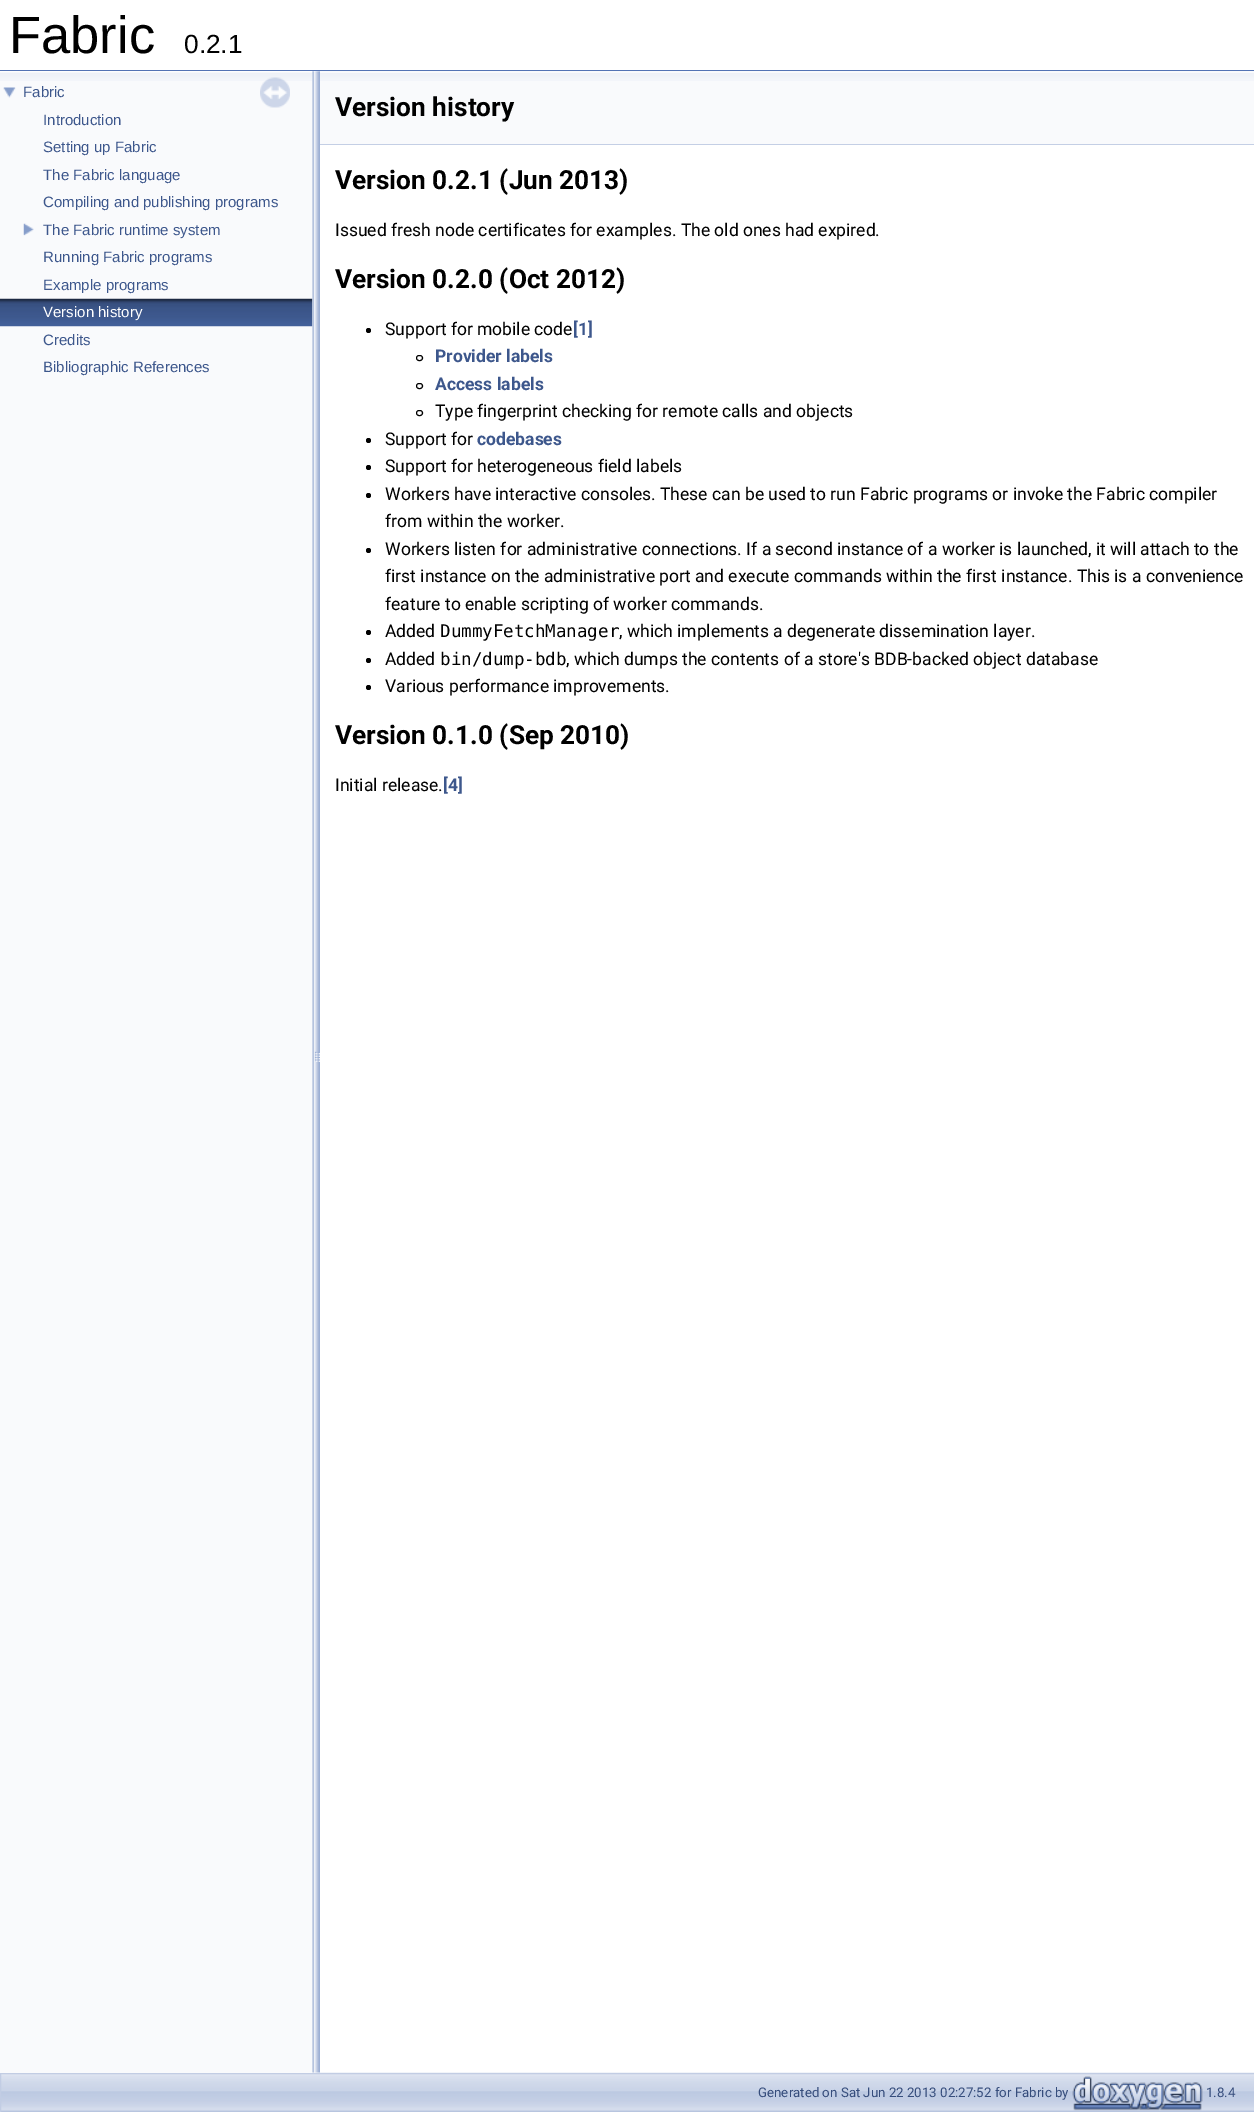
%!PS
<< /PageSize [1254 2112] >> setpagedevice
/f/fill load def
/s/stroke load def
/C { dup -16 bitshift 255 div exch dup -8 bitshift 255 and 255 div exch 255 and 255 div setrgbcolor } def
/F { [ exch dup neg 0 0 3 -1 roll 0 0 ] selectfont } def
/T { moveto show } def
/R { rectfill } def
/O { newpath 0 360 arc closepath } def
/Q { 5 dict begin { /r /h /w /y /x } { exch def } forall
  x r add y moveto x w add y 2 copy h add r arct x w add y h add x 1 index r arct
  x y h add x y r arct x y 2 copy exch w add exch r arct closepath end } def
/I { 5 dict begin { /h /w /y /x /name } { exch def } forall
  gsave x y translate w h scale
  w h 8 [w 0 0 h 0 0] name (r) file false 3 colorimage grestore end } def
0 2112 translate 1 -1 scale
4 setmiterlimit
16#FFFFFF C
0 0 1254 2112 R
16#5373B4 C
0 70 1254 1 R
/LiberationSans-Regular 52.5 F
16#000000 C
(Fabric) 9 53 T
/LiberationSans-Regular 26.25 F
(0.2.1) 184 53 T
(8.rgb) 1 2072 1253 40 I
16#F9FAFC C
0 71 313 2002 R
(1.rgb) 0 71 313 10 I
(2.rgb) 260 77 30 31 I
(3.rgb) 3 87 13 11 I
/LiberationSans-Regular 15 F
16#3D578C C
(Fabric) 23 97 T
(Introduction) 43 125 T
(Setting up Fabric) 43 152 T
(The Fabric language) 43 180 T
(Compiling and publishing programs) 43 207 T
(4.rgb) 23 223 11 13 I
(The Fabric runtime system) 43 235 T
(Running Fabric programs) 43 262 T
(Example programs) 43 290 T
(5.rgb) 0 298 313 29 I
16#FFFFFF C
(Version history) 43 317 T
16#3D578C C
(Credits) 43 345 T
(Bibliographic References) 43 372 T
(6.rgb) 312 71 8 2002 I
16#F9FAFC C
320 71 934 73 R
(7.rgb) 320 73 934 8 I
16#C4CFE5 C
320 144 934 1 R
/Roboto-Bold 26.25 F
16#000000 C
(Version history) 335 116 T
(Version 0.2.1 \(Jun 2013\)) 335 189 T
/Roboto-Regular 17.5 F
(Issued fresh node certificates for examples. The old ones had expired.) 335 236 T
/Roboto-Bold 26.25 F
(Version 0.2.0 \(Oct 2012\)) 335 288 T
368.5 330.5 2.5 O f
/Roboto-Regular 17.5 F
(Support for mobile code) 385 335 T
/Roboto-Bold 17.5 F
16#3D578C C
([1]) 573 335 T
16#000000 C
416.5 355.5 6 5 2.5 Q s
16#3D578C C
(Provider labels) 435 362 T
16#000000 C
416.5 383.5 6 5 2.5 Q s
16#3D578C C
(Access labels) 435 390 T
16#000000 C
416.5 410.5 6 5 2.5 Q s
/Roboto-Regular 17.5 F
(Type fingerprint checking for remote calls and objects) 435 417 T
368.5 440.5 2.5 O f
(Support for) 385 445 T
/Roboto-Bold 17.5 F
16#3D578C C
(codebases) 477 445 T
16#000000 C
368.5 467.5 2.5 O f
/Roboto-Regular 17.5 F
(Support for heterogeneous field labels) 385 472 T
368.5 495.5 2.5 O f
(Workers have interactive consoles. These can be used to run Fabric programs or invoke the Fabric compiler) 385 500 T
(from within the worker.) 385 527 T
368.5 550.5 2.5 O f
(Workers listen for administrative connections. If a second instance of a worker is launched, it will attach to the) 385 555 T
(first instance on the administrative port and execute commands within the first instance. This is a convenience) 385 582 T
(feature to enable scripting of worker commands.) 385 610 T
368.5 632.5 2.5 O f
(Added) 385 637 T
/DejaVuSansMono-Regular 17.5 F
(DummyFetchManager) 440 637 T
/Roboto-Regular 17.5 F
(, which implements a degenerate dissemination layer.) 619 637 T
368.5 660.5 2.5 O f
(Added) 385 665 T
/DejaVuSansMono-Regular 17.5 F
(bin/dump-bdb) 440 665 T
/Roboto-Regular 17.5 F
(, which dumps the contents of a store's BDB-backed object database) 566 665 T
368.5 687.5 2.5 O f
(Various performance improvements.) 385 692 T
/Roboto-Bold 26.25 F
(Version 0.1.0 \(Sep 2010\)) 335 744 T
/Roboto-Regular 17.5 F
(Initial release.) 335 791 T
/Roboto-Bold 17.5 F
16#3D578C C
([4]) 443 791 T
16#C2CDE4 C
.5 2073.5 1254 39 rectstroke
/Roboto-Regular 13.3 F
16#364D7C C
(Generated on Sat Jun 22 2013 02:27:52 for Fabric by) 758 2097 T
(9.rgb) 1072 2076 131 35 I
(1.8.4) 1206 2097 T
showpage
